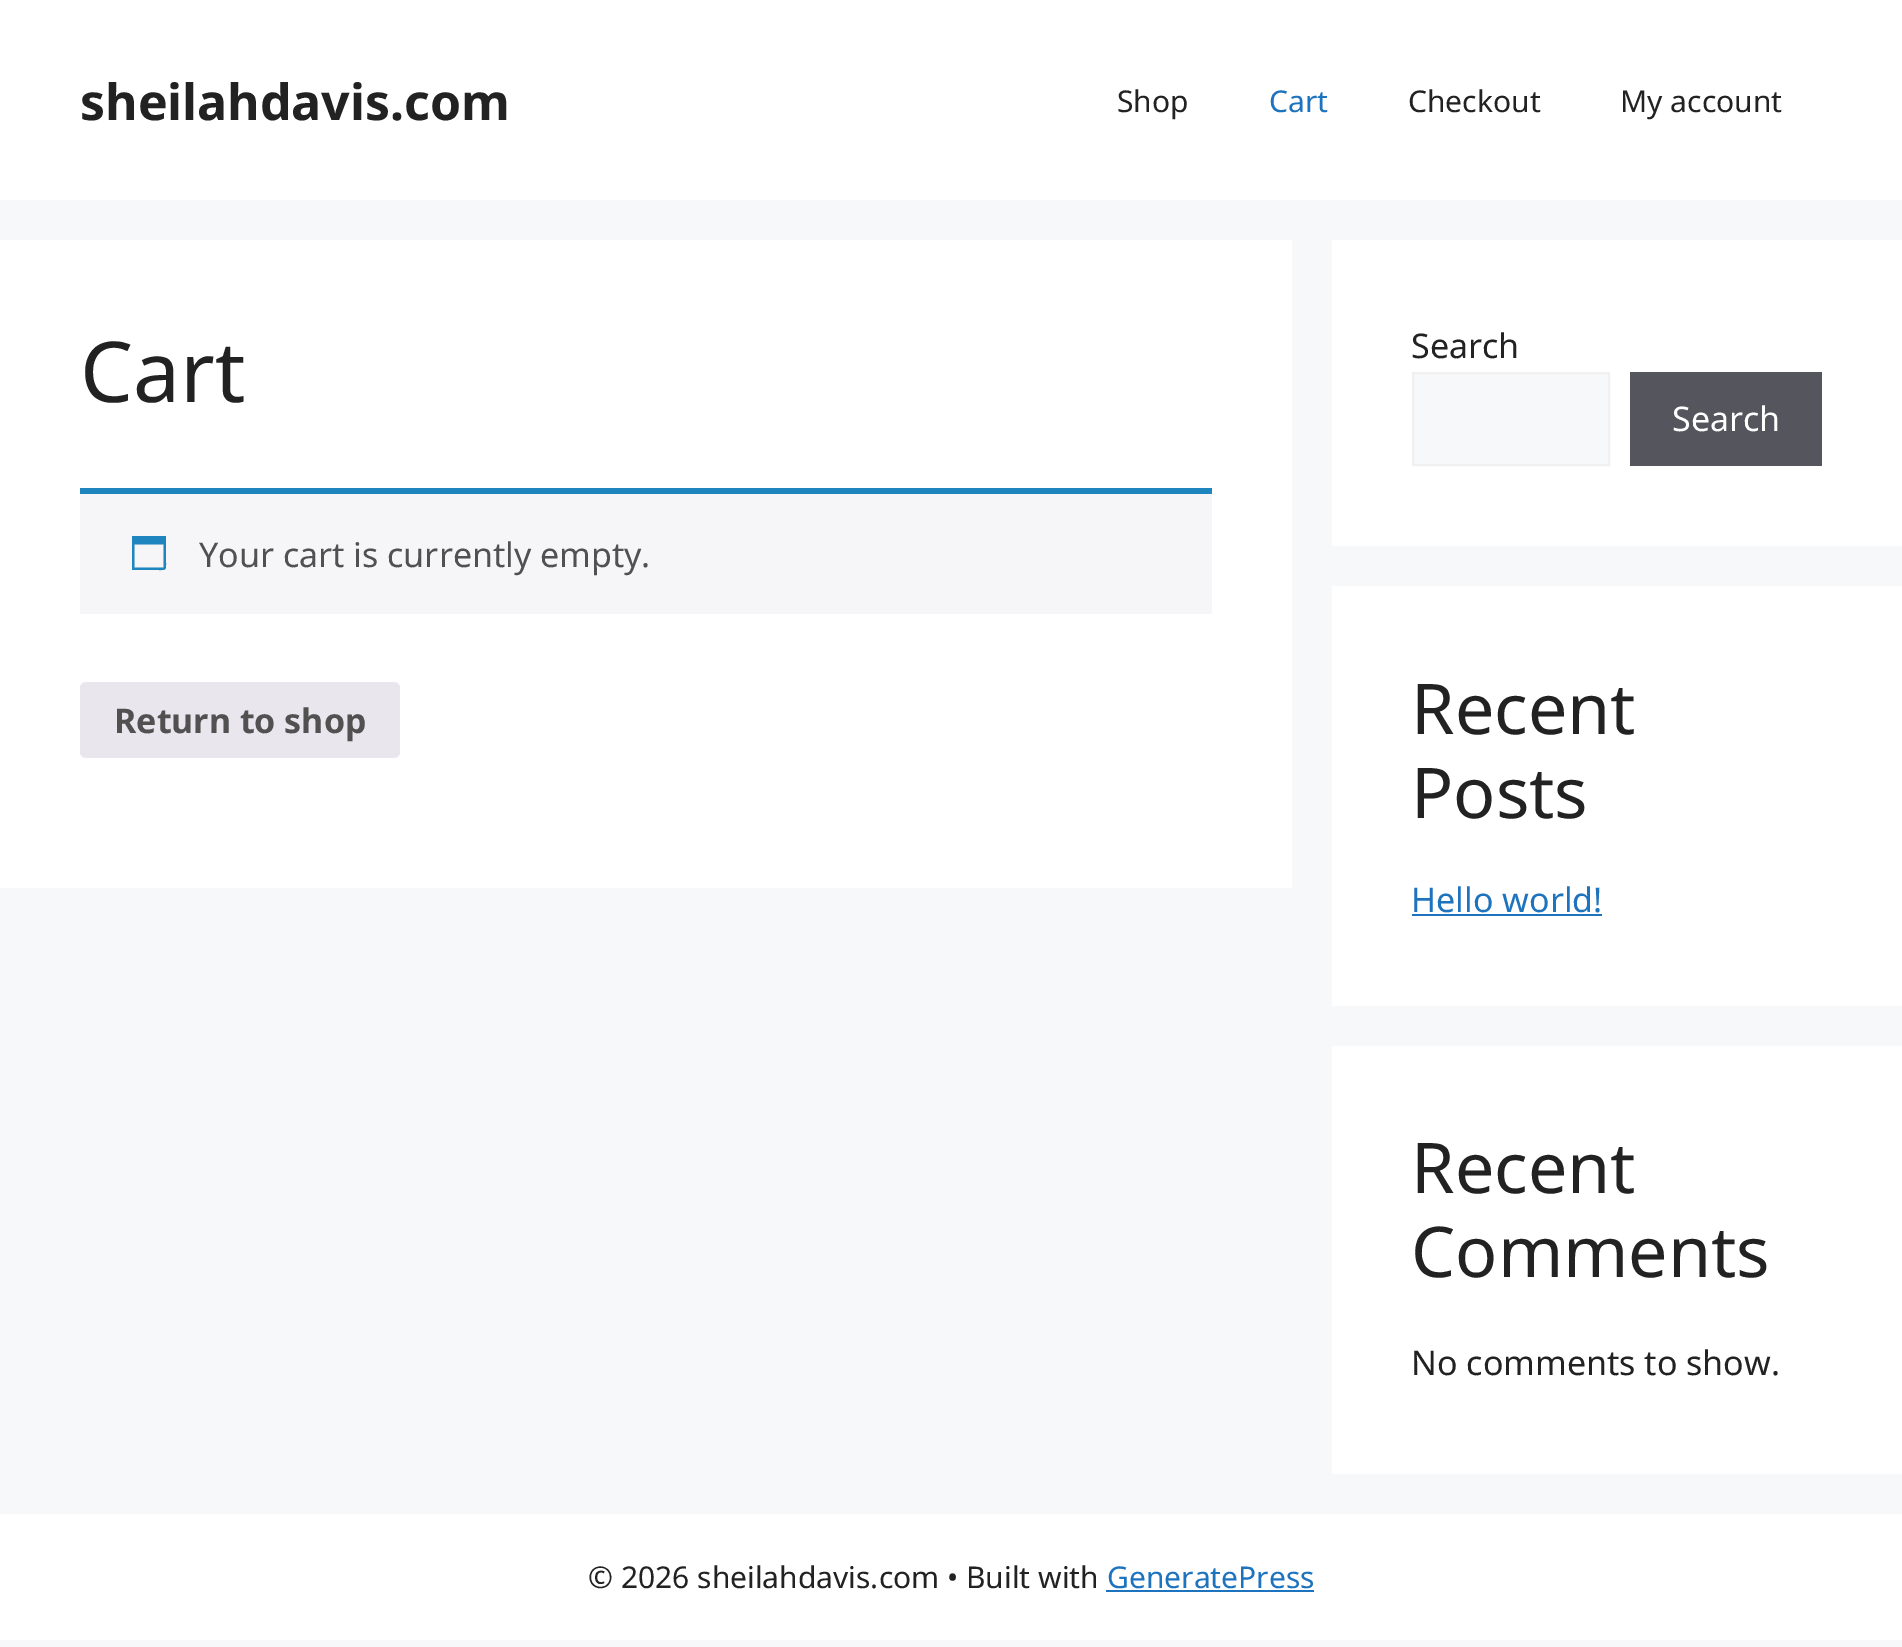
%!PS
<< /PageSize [1902 1647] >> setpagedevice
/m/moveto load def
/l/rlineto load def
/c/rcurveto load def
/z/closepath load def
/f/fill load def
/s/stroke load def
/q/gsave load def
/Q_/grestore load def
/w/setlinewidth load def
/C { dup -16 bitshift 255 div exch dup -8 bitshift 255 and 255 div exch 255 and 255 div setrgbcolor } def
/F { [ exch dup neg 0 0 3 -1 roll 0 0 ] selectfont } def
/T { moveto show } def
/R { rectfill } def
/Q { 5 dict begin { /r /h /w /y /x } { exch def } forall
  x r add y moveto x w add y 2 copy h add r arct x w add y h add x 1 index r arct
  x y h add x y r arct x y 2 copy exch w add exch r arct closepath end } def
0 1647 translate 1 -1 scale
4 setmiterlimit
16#F7F8F9 C
0 0 1902 1647 R
16#FFFFFF C
0 0 1902 200 R
/NotoSans-Bold 50 F
16#222222 C
(sheilahdavis.com) 80 120 T
/NotoSans-Regular 30 F
(Shop) 1117 112 T
16#1E73BE C
(Cart) 1269 112 T
16#222222 C
(Checkout) 1408 112 T
(My account) 1620 112 T
16#FFFFFF C
0 240 1292 648 R
/NotoSans-Regular 84 F
16#222222 C
(Cart) 80 402 T
16#F6F5F8 C
80 494 1132 120 R
16#1E85BE C
80 488 1132 6 R
163.5 544.5 m -29 0 l 0 23 l 29 0 l z 166 536 m 0 26 l 0 8.5 .5 8 -7.5 8 c -26.5 0 l 0 -34 l z f
/NotoSans-Regular 34 F
16#515151 C
(Your cart is currently empty.) 199 567 T
16#E9E6ED C
80 682 320 76 6 Q f
/NotoSans-Bold 34 F
16#515151 C
(Return to shop) 114 733 T
16#FFFFFF C
1332 240 570 306 R
/NotoSans-Regular 34 F
16#222222 C
(Search) 1411 358 T
16#F7F8F9 C
1413 373 m 196 0 l 0 92 l -196 0 l z q f Q_
16#F0F0F0 C
2 w
s
16#55555E C
1630 372 192 94 R
16#FFFFFF C
(Search) 1672 431 T
1332 586 570 420 R
/NotoSans-Regular 70 F
16#222222 C
(Recent) 1411 734 T
(Posts) 1411 818 T
/NotoSans-Regular 34 F
16#1E73BE C
(Hello world!) 1411 912 T
1412 914 190 2 R
16#FFFFFF C
1332 1046 570 428 R
/NotoSans-Regular 70 F
16#222222 C
(Recent) 1411 1193 T
(Comments) 1411 1277 T
/NotoSans-Regular 34 F
(No comments to show.) 1411 1375 T
16#FFFFFF C
0 1514 1902 126 R
/NotoSans-Regular 30 F
16#222222 C
(© 2026 sheilahdavis.com • Built with) 588 1588 T
16#1E73BE C
(GeneratePress) 1107 1588 T
1106 1590 208 2 R
showpage
